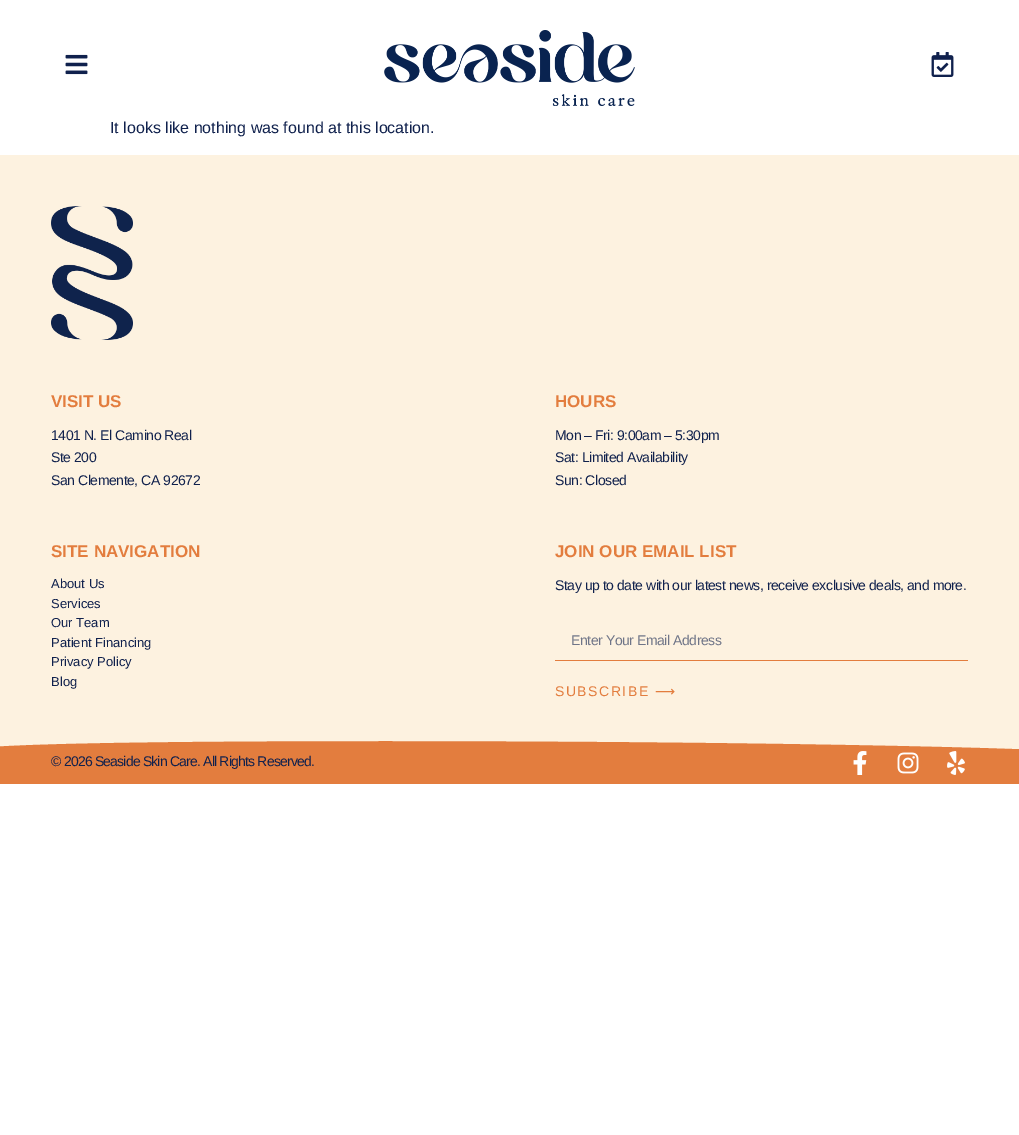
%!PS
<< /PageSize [1019 1135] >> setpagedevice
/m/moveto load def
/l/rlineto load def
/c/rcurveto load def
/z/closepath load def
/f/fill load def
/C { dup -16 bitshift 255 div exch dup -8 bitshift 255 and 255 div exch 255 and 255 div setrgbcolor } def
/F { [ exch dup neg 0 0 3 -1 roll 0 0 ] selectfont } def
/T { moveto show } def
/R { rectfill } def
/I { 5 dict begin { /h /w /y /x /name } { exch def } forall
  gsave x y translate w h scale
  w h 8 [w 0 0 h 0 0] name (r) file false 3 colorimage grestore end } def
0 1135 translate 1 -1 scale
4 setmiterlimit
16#FFFFFF C
0 0 1019 1135 R
(1.rgb) 65 54 23 21 I
(2.rgb) 384 30 251 76 I
(3.rgb) 931 52 23 25 I
/LiberationSans-Regular 16 F
16#10214D C
(It looks like nothing was found at this location.) 110 133 T
16#FDF2E0 C
0 155 1019 586 R
(4.rgb) 51 206 82 134 I
/LiberationSans-Bold 17 F
16#E37D3E C
(VISIT US) 51 407 T
/LiberationSans-Regular 14 F
16#10214D C
51 440 m -.45 0 (1401 N. El Camino Real) ashow
51 462 m -.45 0 (Ste 200) ashow
51 485 m -.45 0 (San Clemente, CA 92672) ashow
/LiberationSans-Bold 17 F
16#E37D3E C
(HOURS) 555 407 T
/LiberationSans-Regular 14 F
16#10214D C
555 440 m -.45 0 (Mon – Fri: 9:00am – 5:30pm) ashow
555 462 m -.45 0 (Sat: Limited Availability) ashow
555 485 m -.45 0 (Sun: Closed) ashow
/LiberationSans-Bold 17 F
16#E37D3E C
(SITE NAVIGATION) 51 557 T
/LiberationSans-Regular 13 F
16#10214D C
(About Us) 51 588 T
(Services) 51 608 T
(Our Team) 51 627 T
(Patient Financing) 51 647 T
(Privacy Policy) 51 666 T
(Blog) 51 686 T
/LiberationSans-Bold 17 F
16#E37D3E C
(JOIN OUR EMAIL LIST) 555 557 T
/LiberationSans-Regular 14 F
16#10214D C
555 590 m -.45 0 (Stay up to date with our latest news, receive exclusive deals, and more.) ashow
16#E37D3E C
555 660 413 1 R
16#6F7588 C
571 645 m -.45 0 (Enter Your Email Address) ashow
16#E37D3E C
555 696 m 1.5 0 (SUBSCRIBE) ashow
/DejaVuSans-Regular 14 F
655 696 m 1.5 0 (⟶) ashow
0 741 1019 43 R
16#FDF2E0 C
383 741 m 410 0 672 8 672 10 c 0 -10 l -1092 0 l 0 10 l 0 -2 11 -10 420 -10 c z f
/LiberationSans-Regular 14 F
16#10214D C
51 766 m -.8 0 (© 2026 Seaside Skin Care. All Rights Reserved.) ashow
(5.rgb) 853 751 14 24 I
(6.rgb) 897 752 22 22 I
(7.rgb) 947 751 18 24 I
showpage
